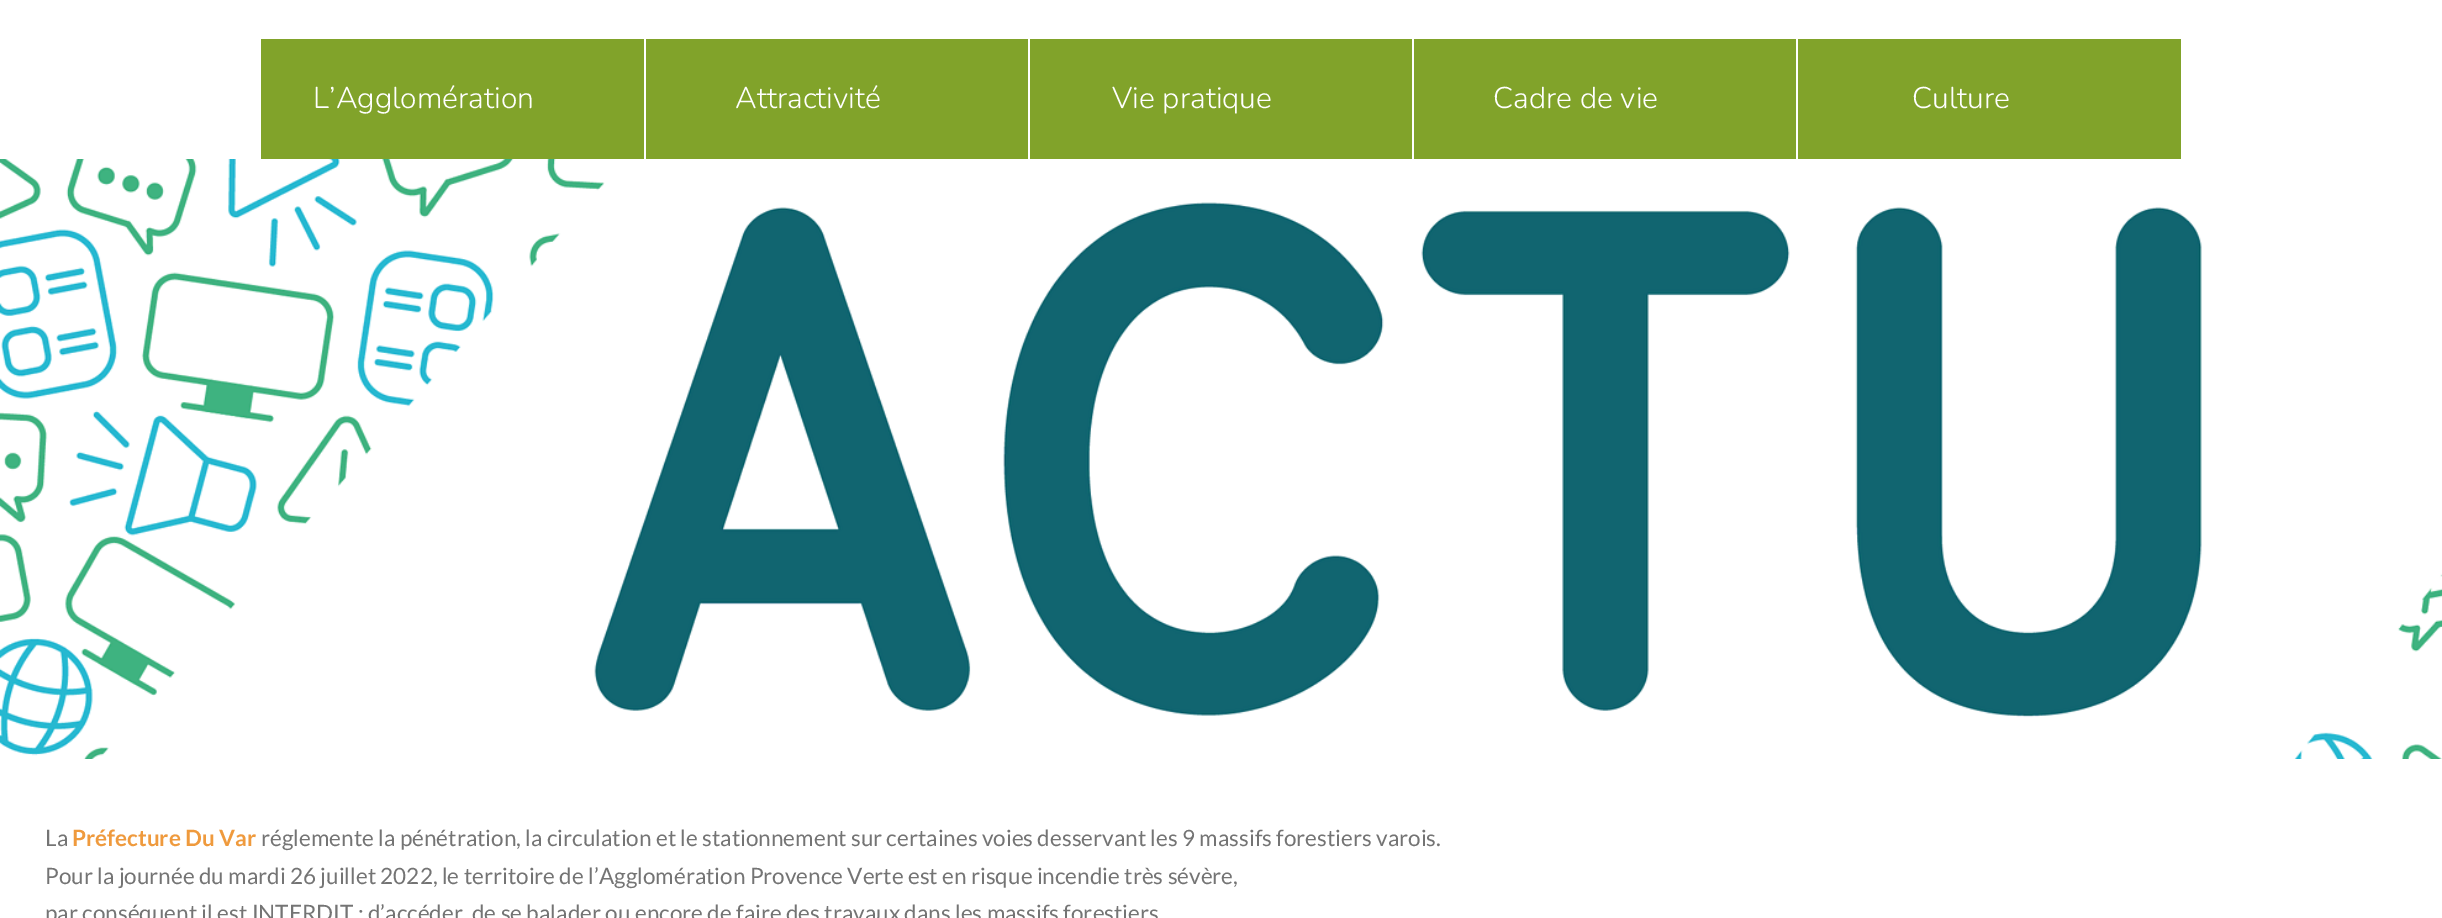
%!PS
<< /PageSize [2442 918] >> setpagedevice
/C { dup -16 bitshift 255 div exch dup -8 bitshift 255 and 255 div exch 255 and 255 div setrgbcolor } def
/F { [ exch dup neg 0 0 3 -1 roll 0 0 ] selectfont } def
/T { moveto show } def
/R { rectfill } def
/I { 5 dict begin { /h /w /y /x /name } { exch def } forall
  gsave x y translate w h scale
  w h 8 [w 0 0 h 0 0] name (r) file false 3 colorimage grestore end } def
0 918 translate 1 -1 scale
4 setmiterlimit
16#FFFFFF C
0 0 2442 918 R
16#81A32A C
261 39 1920 120 R
16#FFFFFF C
644 39 2 120 R
/Nunito-Light 30 F
(L’Agglomération) 313 108 T
1028 39 2 120 R
(Attractivité) 735 108 T
1412 39 2 120 R
(Vie pratique) 1112 108 T
1796 39 2 120 R
(Cadre de vie) 1493 108 T
(Culture) 1912 108 T
(1.rgb) 0 159 2442 600 I
/Lato-Regular 22.5 F
16#747474 C
(La) 45 846 T
/Lato-Bold 22.5 F
16#EF9A3D C
(Préfecture Du Var) 72 846 T
/Lato-Regular 22.5 F
16#747474 C
(réglemente la pénétration, la circulation et le stationnement sur certaines voies desservant les 9 massifs forestiers varois.) 261 846 T
(Pour la journée du mardi 26 juillet 2022, le territoire de l’Agglomération Provence Verte est en risque incendie très sévère,) 45 884 T
(par conséquent il est INTERDIT : d’accéder, de se balader ou encore de faire des travaux dans les massifs forestiers) 45 921 T
showpage
